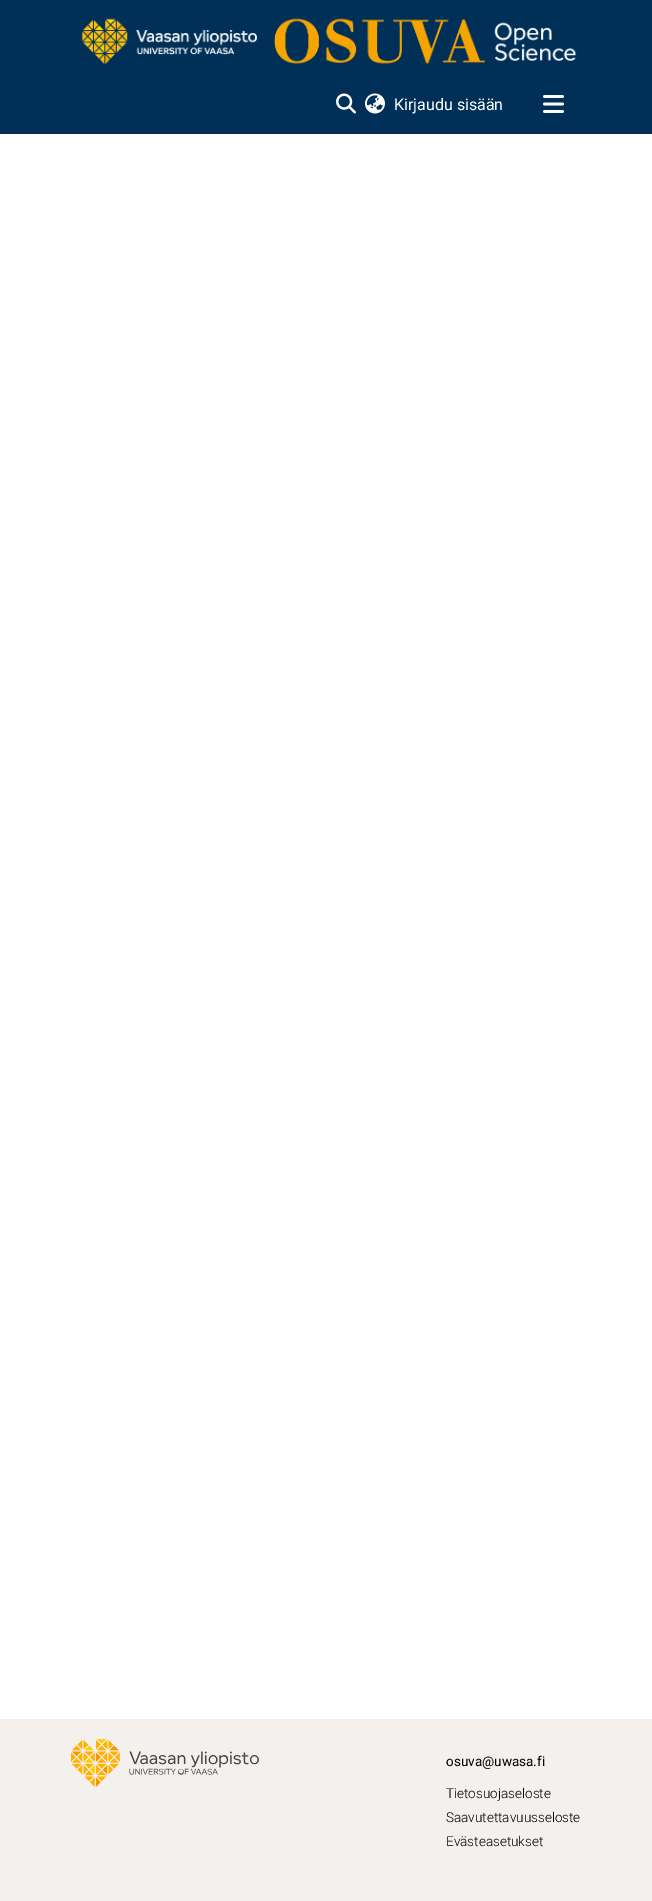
%!PS
<< /PageSize [652 1901] >> setpagedevice
/C { dup -16 bitshift 255 div exch dup -8 bitshift 255 and 255 div exch 255 and 255 div setrgbcolor } def
/F { [ exch dup neg 0 0 3 -1 roll 0 0 ] selectfont } def
/T { moveto show } def
/R { rectfill } def
/I { 5 dict begin { /h /w /y /x /name } { exch def } forall
  gsave x y translate w h scale
  w h 8 [w 0 0 h 0 0] name (r) file false 3 colorimage grestore end } def
0 1901 translate 1 -1 scale
4 setmiterlimit
16#FFFFFF C
0 0 652 1901 R
16#003057 C
0 0 652 134 R
(1.rgb) 81 18 496 46 I
(2.rgb) 336 93 20 21 I
(3.rgb) 365 93 20 21 I
/Roboto-Regular 16 F
16#FFFFFF C
(Kirjaudu sisään) 394 110 T
(4.rgb) 543 95 21 18 I
16#F3F0ED C
0 1719 652 182 R
(5.rgb) 71 1739 188 48 I
/Roboto-Regular 13.5 F
16#000000 C
(osuva@uwasa.fi) 446 1766 T
/Roboto-Light 13.5 F
(Tietosuojaseloste) 446 1798 T
(Saavutettavuusseloste) 446 1822 T
(Evästeasetukset) 446 1846 T
showpage
